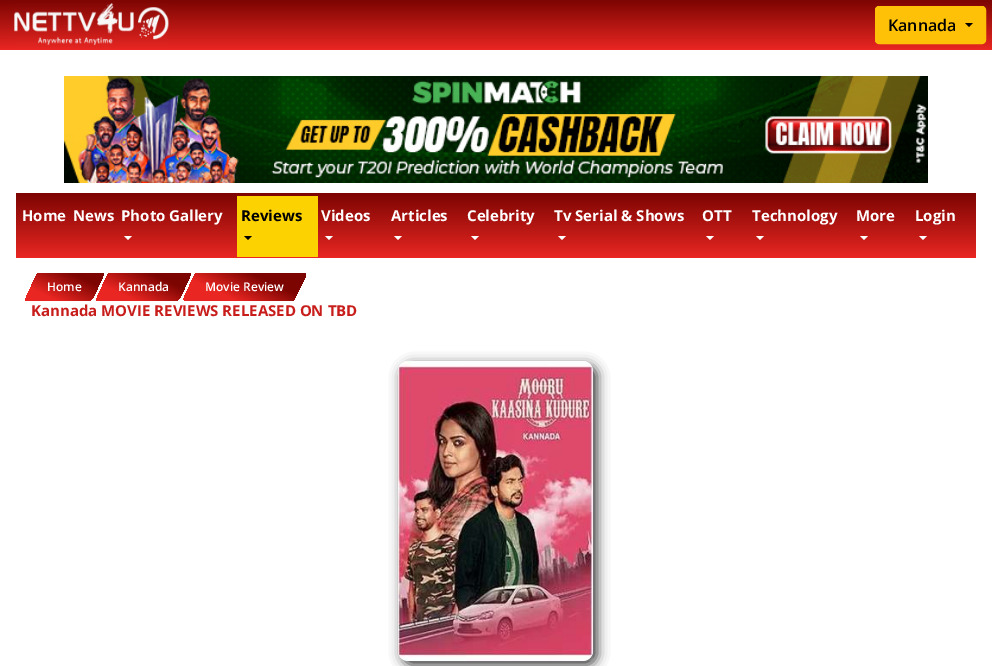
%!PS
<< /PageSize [992 666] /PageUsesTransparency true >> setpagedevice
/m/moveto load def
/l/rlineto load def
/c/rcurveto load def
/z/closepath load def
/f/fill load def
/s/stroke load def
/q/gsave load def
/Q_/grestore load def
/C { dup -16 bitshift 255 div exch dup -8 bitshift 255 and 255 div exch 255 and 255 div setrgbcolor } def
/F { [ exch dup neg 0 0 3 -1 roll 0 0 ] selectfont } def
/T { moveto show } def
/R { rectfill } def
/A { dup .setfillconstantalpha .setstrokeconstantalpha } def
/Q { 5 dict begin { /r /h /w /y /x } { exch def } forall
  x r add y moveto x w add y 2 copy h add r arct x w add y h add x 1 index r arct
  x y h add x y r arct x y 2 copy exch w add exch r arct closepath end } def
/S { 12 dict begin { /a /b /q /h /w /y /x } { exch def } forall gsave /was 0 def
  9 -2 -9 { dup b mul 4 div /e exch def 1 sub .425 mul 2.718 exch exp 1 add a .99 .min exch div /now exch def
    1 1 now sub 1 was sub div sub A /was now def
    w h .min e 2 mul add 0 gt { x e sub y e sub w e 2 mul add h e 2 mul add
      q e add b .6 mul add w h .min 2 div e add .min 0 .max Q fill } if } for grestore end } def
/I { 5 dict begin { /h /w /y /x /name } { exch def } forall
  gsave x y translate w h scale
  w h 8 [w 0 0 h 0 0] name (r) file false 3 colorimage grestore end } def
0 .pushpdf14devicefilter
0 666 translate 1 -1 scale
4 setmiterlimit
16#FFFFFF C
0 0 992 666 R
q 0 0 m 992 0 l 0 50 l -992 0 l z clip newpath
<< /ShadingType 2 /ColorSpace /DeviceRGB /Coords [496 0 496 50] /Extend [true true] /Function << /FunctionType 2 /Domain [0 1] /C0 [.486 .02 .008] /C1 [.914 .149 .133] /N 1 >> >> shfill Q_
(1.rgb) 14 3 155 42 I
16#FFC107 C
875.5 6.5 110 37 3.5 Q q f Q_
s
/OpenSans-SemiBold 16 F
16#000000 C
(Kannada) 888 31 T
965 23 m 8 0 l -4 4 l z f
(2.rgb) 64 76 864 107 I
q 16 193 m 960 0 l 0 65 l -960 0 l z clip newpath
<< /ShadingType 2 /ColorSpace /DeviceRGB /Coords [496 193 496 258] /Extend [true true] /Function << /FunctionType 2 /Domain [0 1] /C0 [.486 .02 .008] /C1 [.914 .149 .133] /N 1 >> >> shfill Q_
/OpenSans-Bold 15 F
16#FFFFFF C
(Home) 22 221 T
(News) 73 221 T
(Photo Gallery) 121 221 T
124 236 m 8 0 l -4 4 l z f
16#FCD200 C
237 196 81 61 R
16#000000 C
(Reviews) 241 221 T
244 236 m 8 0 l -4 4 l z f
16#FFFFFF C
(Videos) 321 221 T
325 236 m 8 0 l -4 4 l z f
(Articles) 391 221 T
394 236 m 8 0 l -4 4 l z f
(Celebrity) 467 221 T
471 236 m 8 0 l -4 4 l z f
(Tv Serial & Shows) 554 221 T
558 236 m 8 0 l -4 4 l z f
(OTT) 702 221 T
706 236 m 8 0 l -4 4 l z f
(Technology) 752 221 T
756 236 m 8 0 l -4 4 l z f
(More) 856 221 T
860 236 m 8 0 l -4 4 l z f
(Login) 915 221 T
919 236 m 8 0 l -4 4 l z f
q 41 273 m 60 0 l 2 0 3 1 2 3 c -10 22 l -1 1 -3 3 -5 3 c -61 0 l -1 0 -2 -2 -1 -3 c 10 -22 l 1 -2 3 -3 5 -3 c z clip newpath
<< /ShadingType 2 /ColorSpace /DeviceRGB /Coords [71 273 58 301] /Extend [true true] /Function << /FunctionType 2 /Domain [0 1] /C0 [.486 .02 .008] /C1 [.914 .149 .133] /N 1 >> >> shfill Q_
/OpenSans-SemiBold 12 F
(Home) 47 291 T
q 111 273 m 78 0 l 1 0 2 1 1 3 c -10 22 l -1 1 -3 3 -4 3 c -78 0 l -1 0 -2 -2 -1 -3 c 10 -22 l 1 -2 3 -3 4 -3 c z clip newpath
<< /ShadingType 2 /ColorSpace /DeviceRGB /Coords [150 273 137 301] /Extend [true true] /Function << /FunctionType 2 /Domain [0 1] /C0 [.486 .02 .008] /C1 [.914 .149 .133] /N 1 >> >> shfill Q_
(Kannada) 118 291 T
q 199 273 m 105 0 l 2 0 2 1 2 3 c -11 22 l 0 1 -2 3 -4 3 c -105 0 l -2 0 -3 -2 -2 -3 c 10 -22 l 1 -2 3 -3 5 -3 c z clip newpath
<< /ShadingType 2 /ColorSpace /DeviceRGB /Coords [251 273 238 301] /Extend [true true] /Function << /FunctionType 2 /Domain [0 1] /C0 [.486 .02 .008] /C1 [.914 .149 .133] /N 1 >> >> shfill Q_
(Movie Review) 205 291 T
/OpenSans-Bold 15 F
16#C81E1B C
(Kannada MOVIE REVIEWS RELEASED ON TBD) 31 316 T
16#040404 C
402 365 195 300 10 6 .8 S
(3.rgb) 398 361 195 300 I
.poppdf14devicefilter showpage
